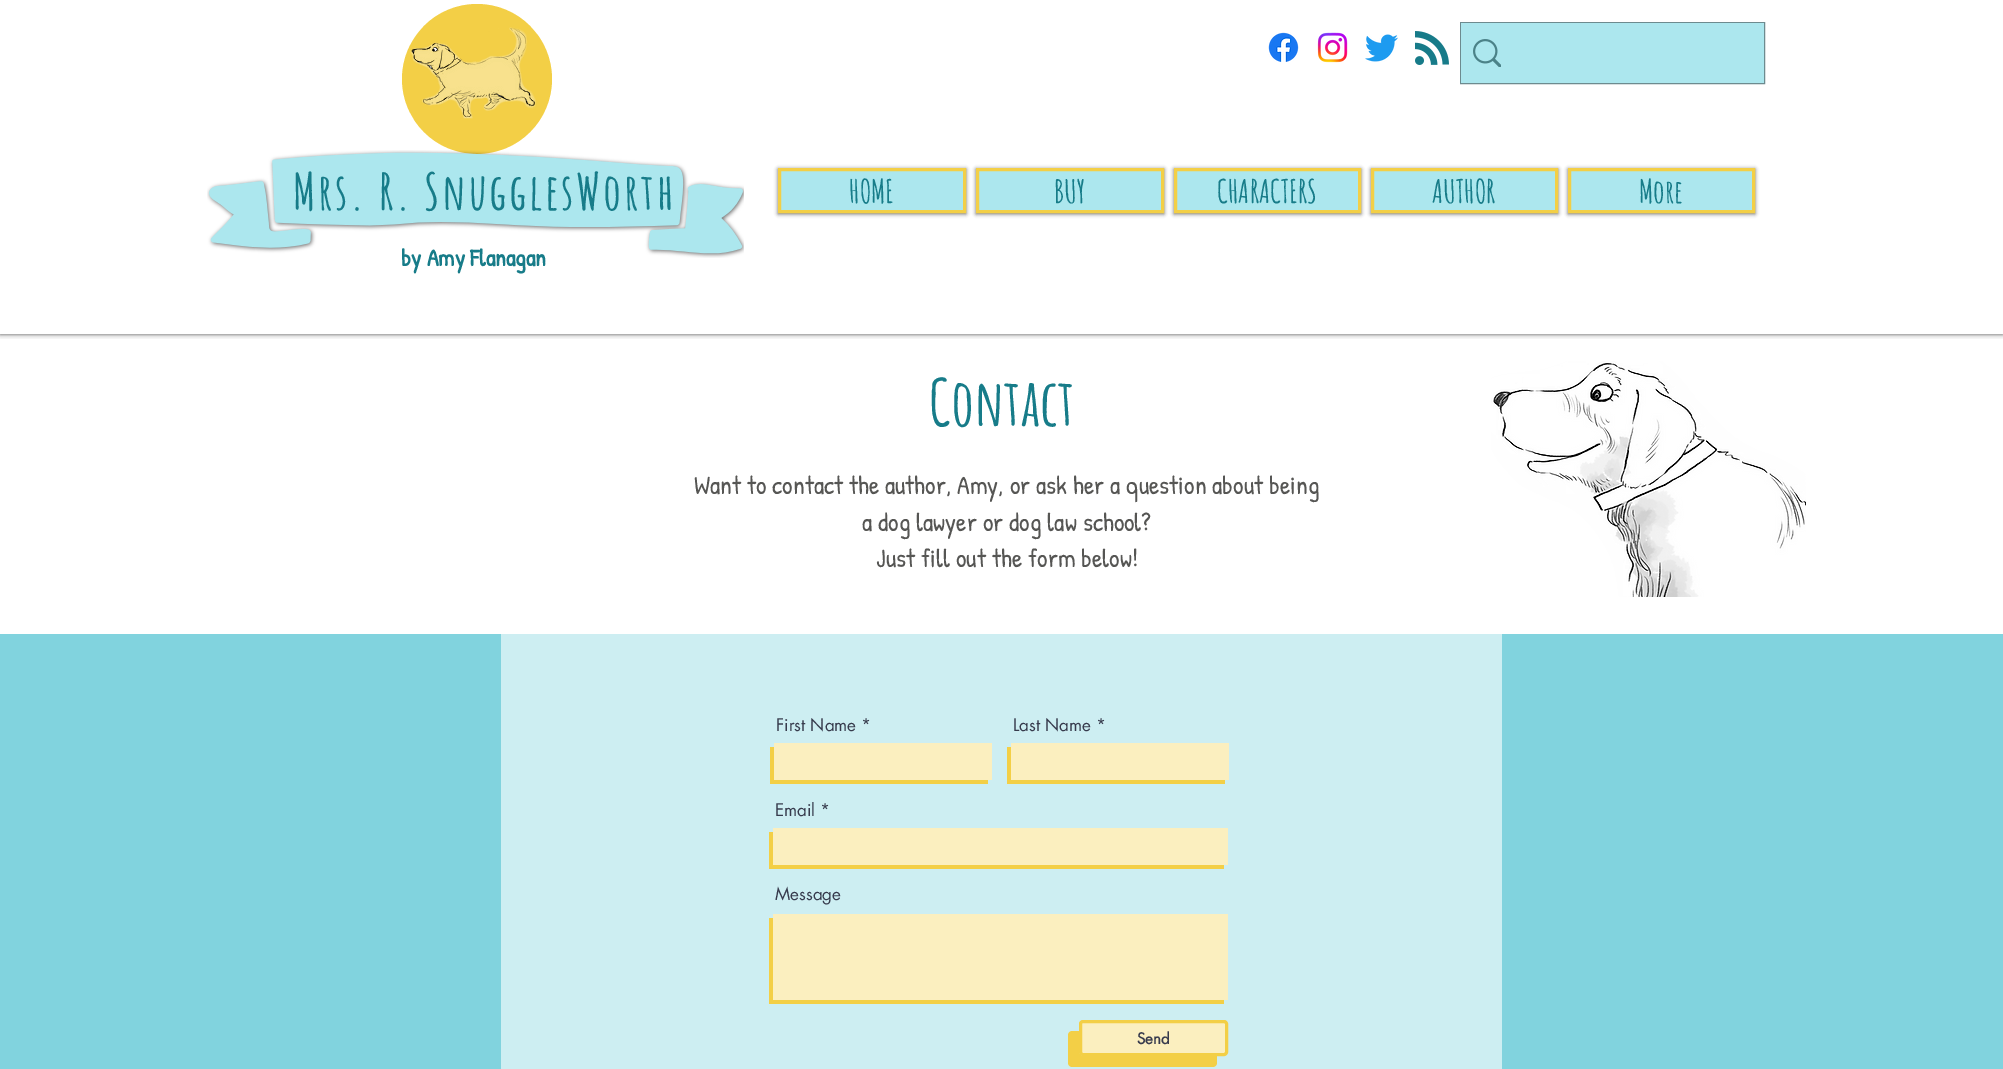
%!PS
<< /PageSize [2003 1069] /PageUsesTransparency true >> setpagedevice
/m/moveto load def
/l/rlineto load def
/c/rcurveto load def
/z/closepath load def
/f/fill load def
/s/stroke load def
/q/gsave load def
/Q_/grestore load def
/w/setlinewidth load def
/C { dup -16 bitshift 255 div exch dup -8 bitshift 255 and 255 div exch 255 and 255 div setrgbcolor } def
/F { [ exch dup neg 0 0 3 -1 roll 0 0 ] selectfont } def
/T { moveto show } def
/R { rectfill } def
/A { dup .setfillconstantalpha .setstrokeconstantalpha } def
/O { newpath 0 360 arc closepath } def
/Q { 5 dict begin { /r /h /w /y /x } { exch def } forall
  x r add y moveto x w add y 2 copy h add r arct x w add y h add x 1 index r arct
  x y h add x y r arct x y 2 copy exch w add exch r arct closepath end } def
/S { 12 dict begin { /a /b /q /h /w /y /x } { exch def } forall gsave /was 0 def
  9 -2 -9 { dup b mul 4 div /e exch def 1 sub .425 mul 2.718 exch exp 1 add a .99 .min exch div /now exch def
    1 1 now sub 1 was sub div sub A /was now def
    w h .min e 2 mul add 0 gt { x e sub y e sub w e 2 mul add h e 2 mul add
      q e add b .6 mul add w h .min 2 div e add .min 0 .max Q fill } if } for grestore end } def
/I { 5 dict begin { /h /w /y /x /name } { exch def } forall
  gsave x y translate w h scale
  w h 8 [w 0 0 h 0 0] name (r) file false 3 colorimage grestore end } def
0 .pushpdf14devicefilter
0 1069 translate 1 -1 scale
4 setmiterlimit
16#FFFFFF C
0 0 2003 1069 R
q
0 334 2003 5 rectclip
16#000000 C
0 0 2003 334 0 2.5 .7 S
Q_
16#F3CF46 C
477 79 75 O f
(1.rgb) 410 27 127 92 I
(2.rgb) 1268 32 31 30 I
(3.rgb) 1317 32 31 31 I
(4.rgb) 1365 34 33 28 I
(5.rgb) 1415 31 34 34 I
16#6D8B8F C
1460.5 22.5 304 61 rectstroke
16#ACE7EE C
1461 23 303 60 R
(6.rgb) 1473 39 28 28 I
(7.rgb) 207 150 537 108 I
/AmaticSC-Bold 50 F
16#177C89 C
293 210 m 2.5 0 (Mrs. R. SnugglesWorth) ashow
16#000000 C
778 169 188 45 0 2 .6 S
16#ACE7EE C
779.5 169.5 m 185 0 l 0 42 l -185 0 l z q f Q_
16#F3CF46 C
3 w
s
/AmaticSC-Bold 32 F
16#177C89 C
(HOME) 849 203 T
16#000000 C
976 169 188 45 0 2 .6 S
16#ACE7EE C
977.5 169.5 m 185 0 l 0 42 l -185 0 l z q f Q_
16#F3CF46 C
s
16#177C89 C
(BUY) 1054 203 T
16#000000 C
1174 169 187 45 0 2 .6 S
16#ACE7EE C
1175.5 169.5 m 184 0 l 0 42 l -184 0 l z q f Q_
16#F3CF46 C
s
16#177C89 C
(CHARACTERS) 1217 203 T
16#000000 C
1371 169 187 45 0 2 .6 S
16#ACE7EE C
1372.5 169.5 m 184 0 l 0 42 l -184 0 l z q f Q_
16#F3CF46 C
s
16#177C89 C
(AUTHOR) 1432 203 T
16#000000 C
1568 169 187 45 0 2 .6 S
16#ACE7EE C
1569.5 169.5 m 184 0 l 0 42 l -184 0 l z q f Q_
16#F3CF46 C
s
16#177C89 C
(More) 1639 203 T
/PatrickHand-Bold 24 F
(by Amy Flanagan) 401 266 T
/AmaticSC-Bold 64 F
(Contact) 929 426 T
/PatrickHand-Regular 26 F
16#565654 C
(Want to contact the author, Amy, or ask her a question about being) 694 494 T
(a dog lawyer or dog law school?) 862 531 T
(Just fill out the form below!) 876 567 T
(8.rgb) 1491 361 315 236 I
16#81D3DE C
0 634 501 435 R
16#CDEEF2 C
501 634 1001 435 R
/futura-Regular 17 F
16#373B4D C
(First Name *) 776 731 T
16#F3CF46 C
770 747 m 0 37 l 218 0 l 0 -4 l -214 0 l 0 -33 l z f
16#FBEFBF C
774 743 218 37 R
16#373B4D C
(Last Name *) 1013 731 T
16#F3CF46 C
1007 747 m 0 37 l 218 0 l 0 -4 l -214 0 l 0 -33 l z f
16#FBEFBF C
1011 743 218 37 R
16#373B4D C
(Email *) 775 816 T
16#F3CF46 C
769 832 m 0 37 l 455 0 l 0 -4 l -451 0 l 0 -33 l z f
16#FBEFBF C
773 828 455 37 R
16#373B4D C
(Message) 775 900 T
16#F3CF46 C
769 918 m 0 86 l 455 0 l 0 -4 l -451 0 l 0 -82 l z f
16#FBEFBF C
773 914 455 86 R
16#F3CF46 C
1072 1031 m -2 0 -4 2 -4 4 c 0 28 l 0 2 2 4 4 4 c 141 0 l 2 0 4 -2 4 -4 c 0 -7 l -134 0 l -2 0 -4 -2 -4 -4 c 0 -21 l z f
16#FBEFBF C
1080.5 1021.5 146 33 2.5 Q q f Q_
16#F3CF46 C
s
/futura-Bold 15 F
16#373B4D C
(Send) 1137 1044 T
16#81D3DE C
1502 634 501 435 R
.poppdf14devicefilter showpage
